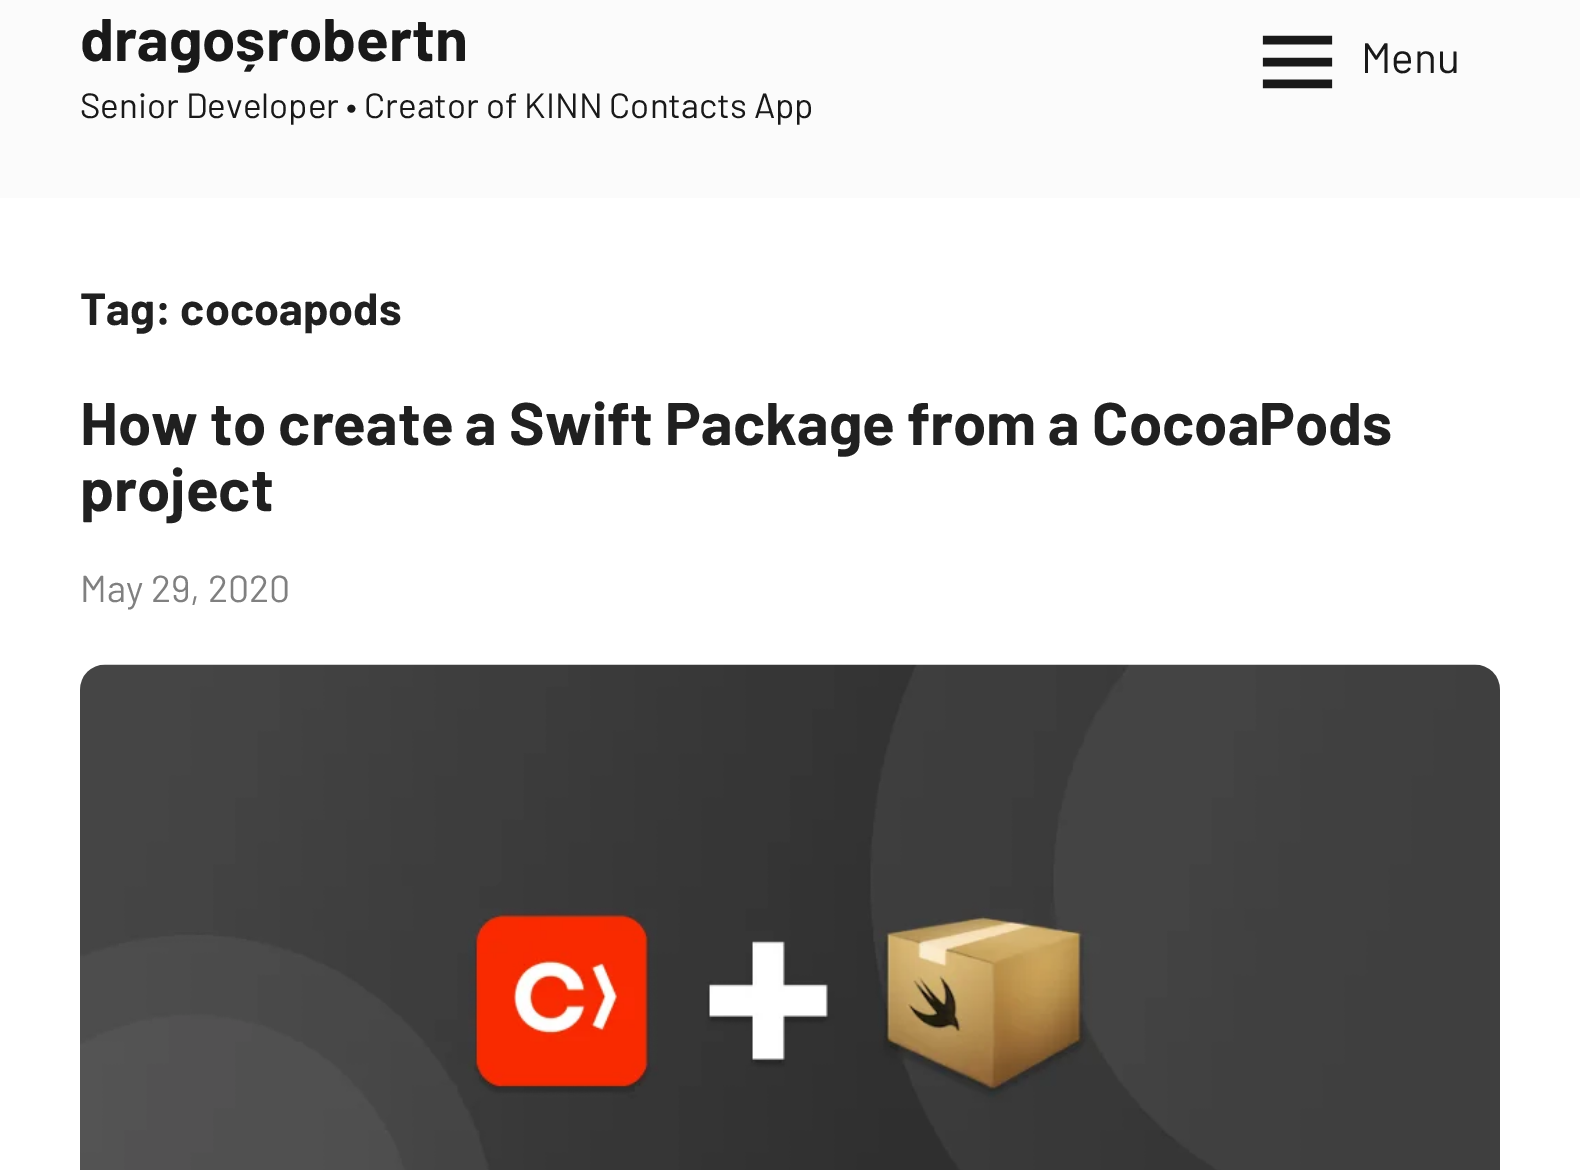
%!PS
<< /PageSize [1580 1170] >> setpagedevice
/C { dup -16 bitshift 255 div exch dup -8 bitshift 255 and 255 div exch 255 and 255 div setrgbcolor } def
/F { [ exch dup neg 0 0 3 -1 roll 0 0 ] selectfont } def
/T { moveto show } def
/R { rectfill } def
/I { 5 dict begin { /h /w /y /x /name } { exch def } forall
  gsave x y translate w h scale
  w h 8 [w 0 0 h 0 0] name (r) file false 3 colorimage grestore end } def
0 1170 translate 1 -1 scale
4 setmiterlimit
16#FFFFFF C
0 0 1580 1170 R
16#FBFBFB C
0 0 1580 198 R
/Barlow-Bold 60 F
16#191919 C
(dragoșrobertn) 80 61 T
/Barlow-Regular 35 F
(Senior Developer • Creator of KINN Contacts App) 80 118 T
(1.rgb) 1262 35 71 54 I
/Barlow-Regular 42.5 F
(Menu) 1361 73 T
/Barlow-Bold 45 F
16#202020 C
(Tag: cocoapods) 80 325 T
/Barlow-Bold 60 F
(How to create a Swift Package from a CocoaPods) 80 445 T
(project) 80 511 T
/Barlow-Regular 37.5 F
16#808080 C
(May 29, 2020) 80 602 T
(2.rgb) 80 664 1420 506 I
showpage
